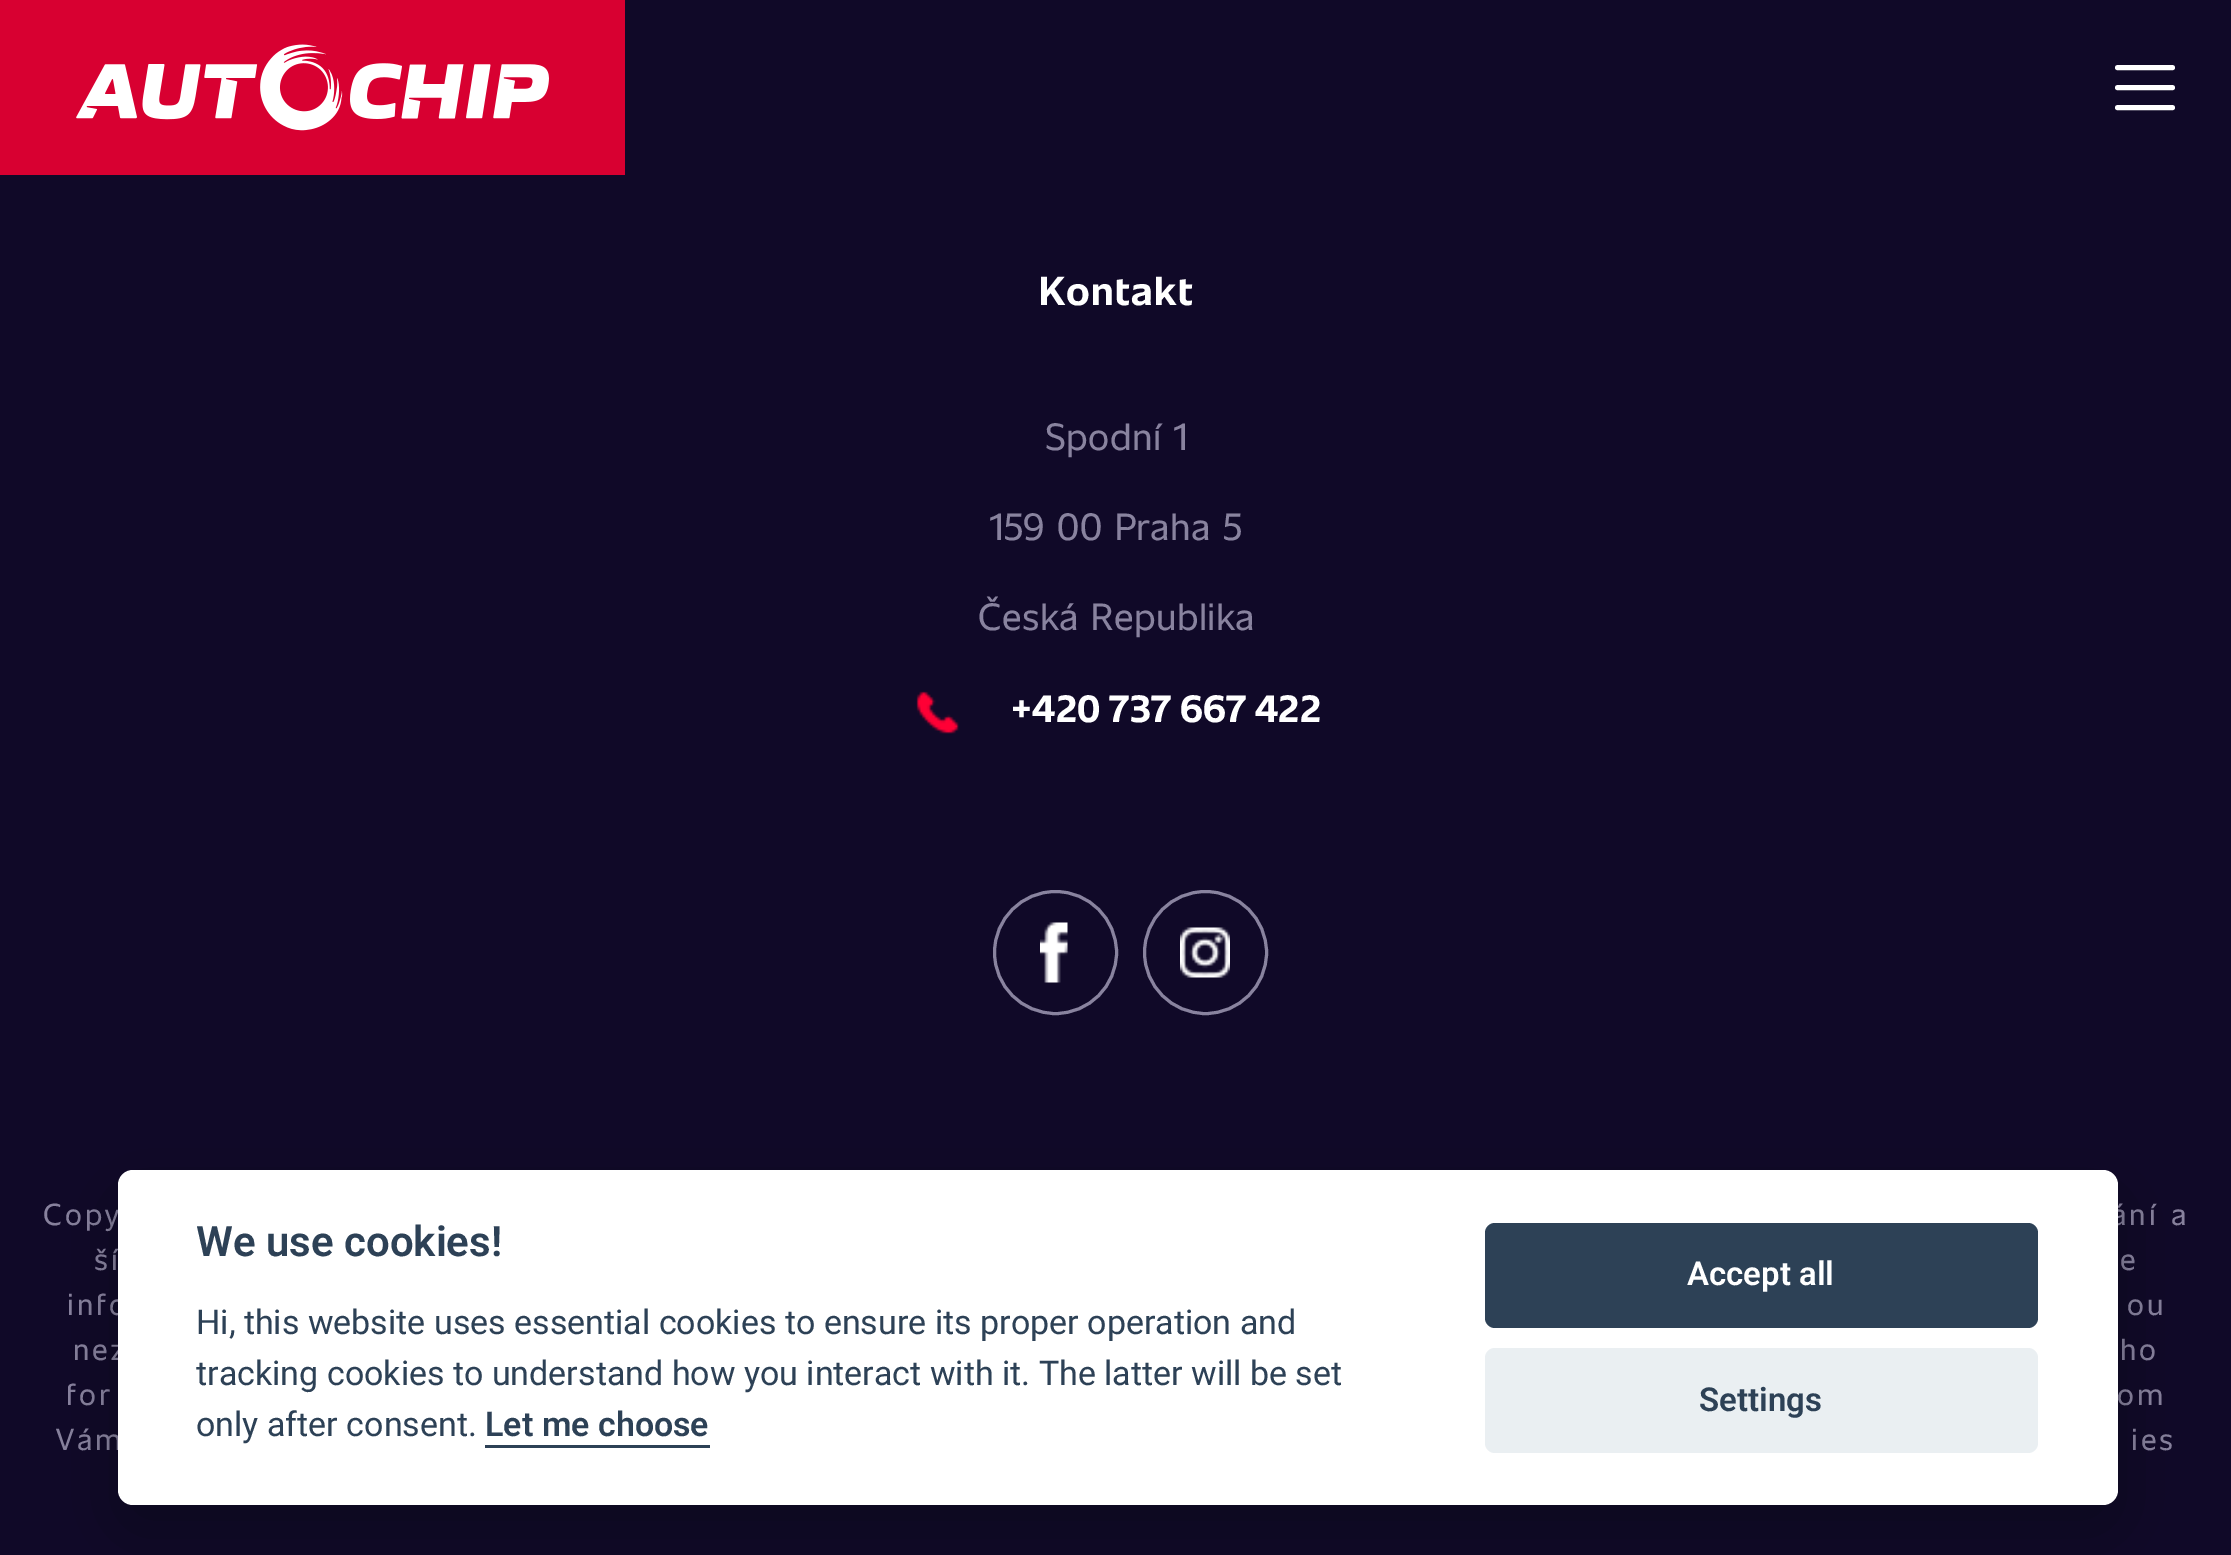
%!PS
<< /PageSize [2231 1555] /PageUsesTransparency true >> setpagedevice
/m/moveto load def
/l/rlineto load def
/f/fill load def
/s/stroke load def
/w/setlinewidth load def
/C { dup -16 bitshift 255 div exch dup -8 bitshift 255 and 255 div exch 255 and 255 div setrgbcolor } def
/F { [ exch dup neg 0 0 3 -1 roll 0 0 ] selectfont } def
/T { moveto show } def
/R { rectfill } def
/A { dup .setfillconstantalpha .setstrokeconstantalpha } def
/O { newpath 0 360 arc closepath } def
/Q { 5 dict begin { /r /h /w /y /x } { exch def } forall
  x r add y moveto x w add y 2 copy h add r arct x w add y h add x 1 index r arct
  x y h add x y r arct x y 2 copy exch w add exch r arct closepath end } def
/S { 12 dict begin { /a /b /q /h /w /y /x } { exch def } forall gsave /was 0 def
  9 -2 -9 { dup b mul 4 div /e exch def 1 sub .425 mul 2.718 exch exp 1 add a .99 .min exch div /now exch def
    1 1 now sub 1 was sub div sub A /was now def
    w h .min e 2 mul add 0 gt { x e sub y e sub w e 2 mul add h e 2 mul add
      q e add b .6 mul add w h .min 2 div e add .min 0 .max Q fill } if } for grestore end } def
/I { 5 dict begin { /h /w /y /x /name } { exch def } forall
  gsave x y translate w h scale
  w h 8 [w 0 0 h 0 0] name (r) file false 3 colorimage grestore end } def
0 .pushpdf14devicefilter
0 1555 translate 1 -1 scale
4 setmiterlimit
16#100928 C
0 0 2231 1555 R
(1.rgb) 0 0 625 175 I
16#FFFFFF C
5 w
1 setlinecap
2117.5 67.5 m 55 0 l 2117.5 87.5 m 55 0 l 2117.5 107.5 m 55 0 l s
/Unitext-Bold 40 F
1039 305 m 1.25 0 (Kontakt) ashow
/Unitext-Regular 37.5 F
16#89839F C
1045 450 m .4 0 (Spodní 1) ashow
990 540 m .4 0 (159 00 Praha 5) ashow
978 630 m .4 0 (Česká Republika) ashow
(2.rgb) 916 691 43 43 I
/Unitext-Bold 37.5 F
16#FFFFFF C
1011 722 m .4 0 (+420 737 667 422) ashow
(3.rgb) 1040 922 28 61 I
16#89839F C
3 w
0 setlinecap
1055.5 952.5 61 O s
(4.rgb) 1180 927 50 51 I
1205.5 952.5 61 O s
/Unitext-Regular 30 F
43 1225 m 3 0 (Copy) ashow
2111 1225 m 3 0 (ání a) ashow
94 1270 m 3 0 (ší) ashow
2120 1270 m 3 0 (e) ashow
67 1315 m 3 0 (info) ashow
2127 1315 m 3 0 (ou) ashow
73 1360 m 3 0 (nez) ashow
2120 1360 m 3 0 (ho) ashow
66 1405 m 3 0 (for) ashow
2117 1405 m 3 0 (om) ashow
56 1450 m 3 0 (Vám) ashow
2131 1450 m 3 0 (ies) ashow
16#020203 C
118 1195 2000 335 15 37.5 .28 S
16#FFFFFF C
118 1170 2000 335 15 Q f
/Roboto-SemiBold 42 F
16#2D4156 C
(We use cookies!) 196 1256 T
/Roboto-Regular 34 F
(Hi, this website uses essential cookies to ensure its proper operation and) 196 1334 T
(tracking cookies to understand how you interact with it. The latter will be set) 196 1385 T
(only after consent.) 196 1436 T
/Roboto-SemiBold 34 F
(Let me choose) 485 1436 T
485 1445 225 3 R
1485 1223 553 105 10 Q f
/Roboto-SemiBold 33 F
16#FFFFFF C
(Accept all) 1687 1285 T
16#EAEFF2 C
1485 1348 553 105 10 Q f
16#2D4156 C
(Settings) 1699 1411 T
.poppdf14devicefilter showpage
